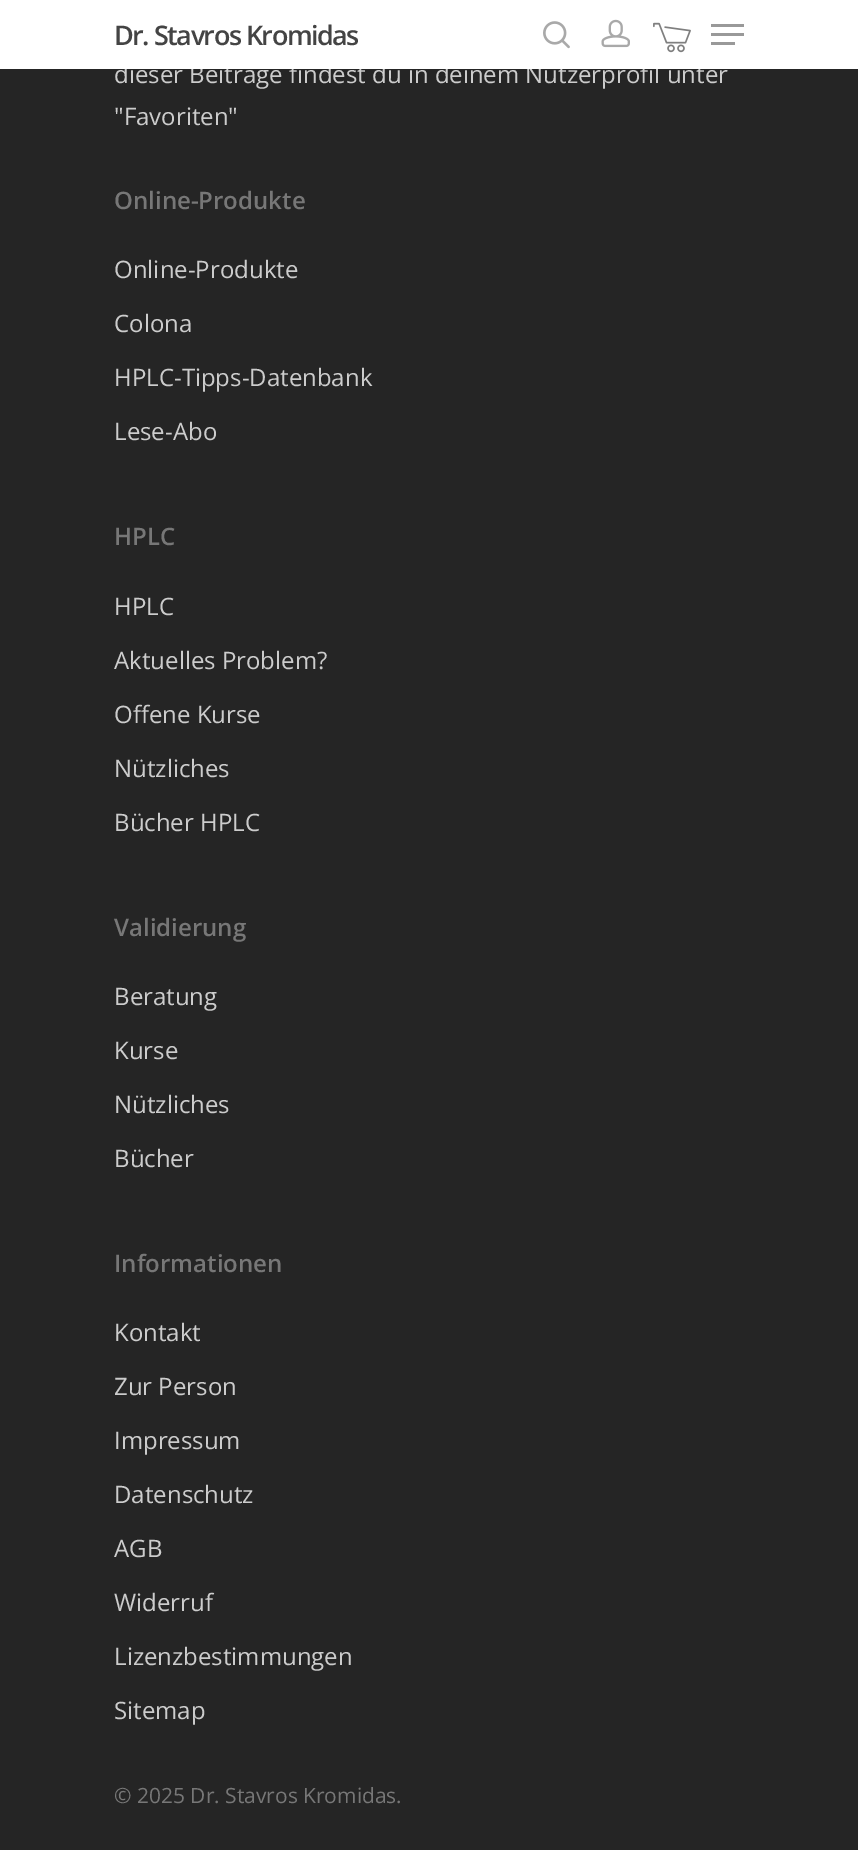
%!PS
<< /PageSize [858 1850] >> setpagedevice
/m/moveto load def
/C { dup -16 bitshift 255 div exch dup -8 bitshift 255 and 255 div exch 255 and 255 div setrgbcolor } def
/F { [ exch dup neg 0 0 3 -1 roll 0 0 ] selectfont } def
/T { moveto show } def
/R { rectfill } def
/I { 5 dict begin { /h /w /y /x /name } { exch def } forall
  gsave x y translate w h scale
  w h 8 [w 0 0 h 0 0] name (r) file false 3 colorimage grestore end } def
0 1850 translate 1 -1 scale
4 setmiterlimit
16#252525 C
0 0 858 1850 R
/OpenSans-Regular 24 F
16#CCCCCC C
(dieser Beiträge findest du in deinem Nutzerprofil unter) 114 83 T
16#FFFFFF C
0 0 858 69 R
/OpenSans-SemiBold 27 F
16#444444 C
114 45 m -1.5 0 (Dr. Stavros Kromidas) ashow
(1.rgb) 543 21 27 28 I
(2.rgb) 601 19 29 29 I
(3.rgb) 653 22 38 31 I
16#999999 C
711 24 33 3 R
711 42 24 3 R
711 33 33 3 R
/OpenSans-Regular 24 F
16#CCCCCC C
("Favoriten") 114 125 T
/OpenSans-SemiBold 24 F
16#777777 C
(Online-Produkte) 114 209 T
/OpenSans-Regular 24 F
16#CCCCCC C
(Online-Produkte) 114 278 T
(Colona) 114 332 T
(HPLC-Tipps-Datenbank) 114 386 T
(Lese-Abo) 114 440 T
/OpenSans-SemiBold 24 F
16#777777 C
(HPLC) 114 545 T
/OpenSans-Regular 24 F
16#CCCCCC C
(HPLC) 114 615 T
(Aktuelles Problem?) 114 669 T
(Offene Kurse) 114 723 T
(Nützliches) 114 777 T
(Bücher HPLC) 114 831 T
/OpenSans-SemiBold 24 F
16#777777 C
(Validierung) 114 936 T
/OpenSans-Regular 24 F
16#CCCCCC C
(Beratung) 114 1005 T
(Kurse) 114 1059 T
(Nützliches) 114 1113 T
(Bücher) 114 1167 T
/OpenSans-SemiBold 24 F
16#777777 C
(Informationen) 114 1272 T
/OpenSans-Regular 24 F
16#CCCCCC C
(Kontakt) 114 1341 T
(Zur Person) 114 1395 T
(Impressum) 114 1449 T
(Datenschutz) 114 1503 T
(AGB) 114 1557 T
(Widerruf) 114 1611 T
(Lizenzbestimmungen) 114 1665 T
(Sitemap) 114 1719 T
/OpenSans-Regular 21 F
16#777777 C
(© 2025 Dr. Stavros Kromidas.) 114 1803 T
showpage
